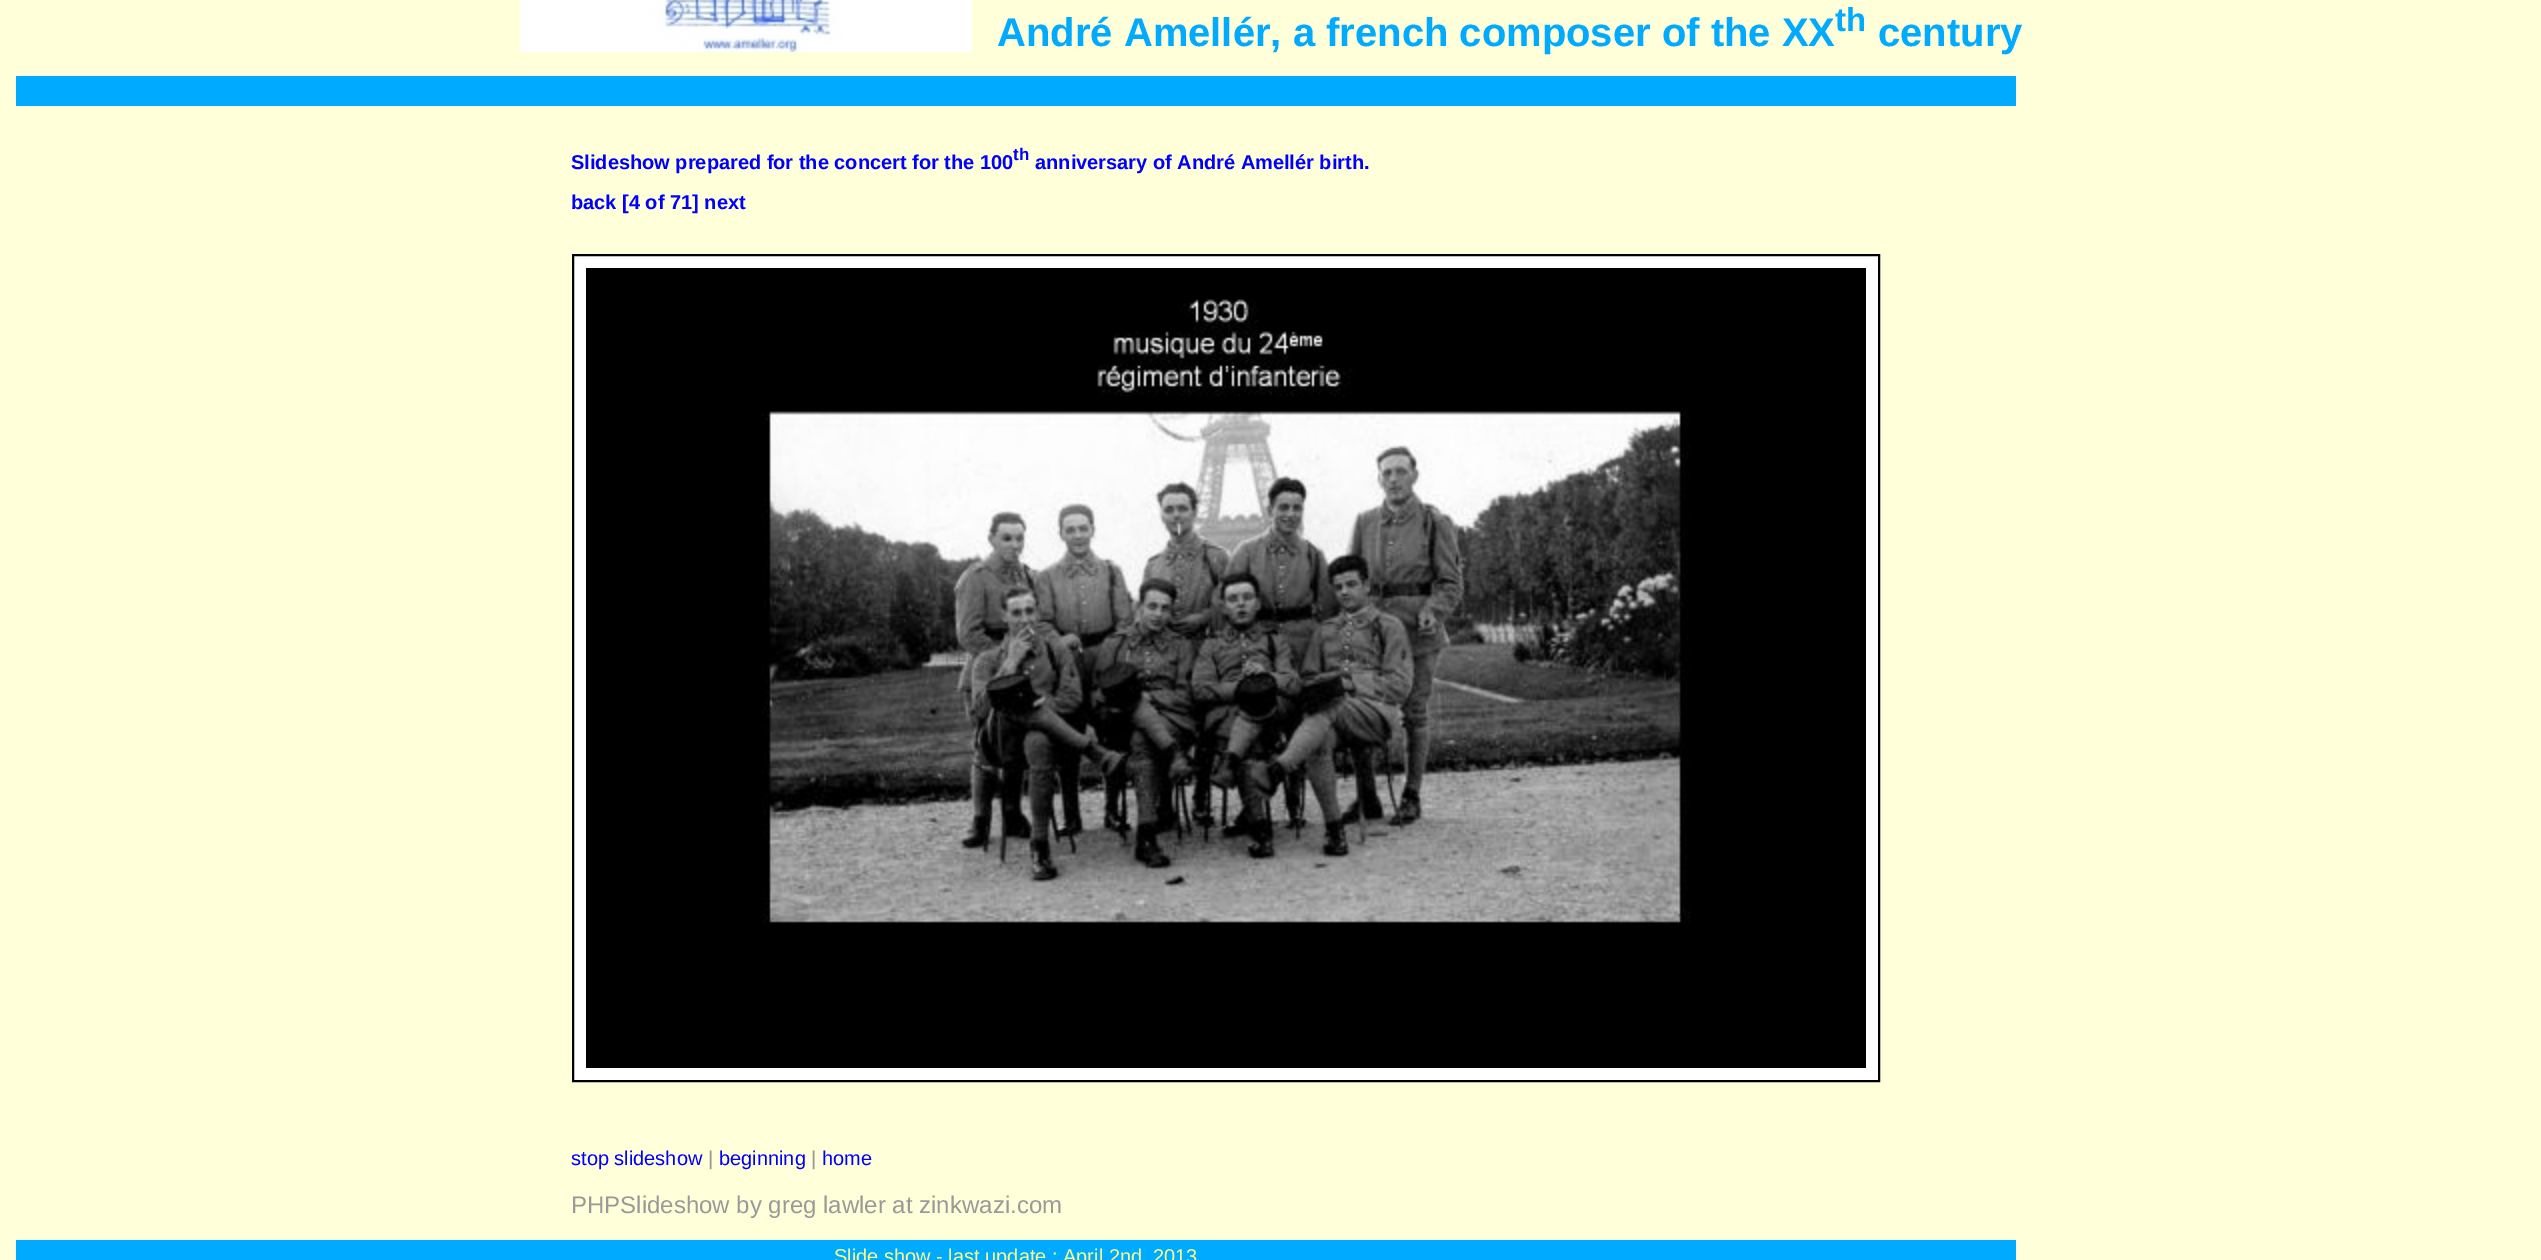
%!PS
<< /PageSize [2541 1260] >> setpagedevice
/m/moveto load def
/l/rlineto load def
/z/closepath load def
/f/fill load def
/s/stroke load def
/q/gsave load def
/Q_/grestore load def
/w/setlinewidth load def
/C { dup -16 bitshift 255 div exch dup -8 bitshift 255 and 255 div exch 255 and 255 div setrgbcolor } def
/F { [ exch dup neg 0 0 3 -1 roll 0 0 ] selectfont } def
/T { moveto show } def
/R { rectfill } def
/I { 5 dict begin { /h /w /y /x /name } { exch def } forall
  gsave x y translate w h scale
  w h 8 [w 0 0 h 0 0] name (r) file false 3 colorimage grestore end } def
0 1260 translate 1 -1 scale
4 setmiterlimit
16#FFFFD9 C
0 0 2541 1260 R
(1.rgb) 520 0 452 52 I
/LiberationSans-Bold 40 F
16#00AAFF C
(André Amellér, a french composer of the XX) 997 46 T
/LiberationSans-Bold 33 F
(th) 1835 31 T
/LiberationSans-Bold 40 F
(century) 1878 46 T
16 76 2000 30 R
/LiberationSans-Bold 20 F
16#0000FF C
(Slideshow prepared for the concert for the 100) 571 169 T
/LiberationSans-Bold 17 F
(th) 1013 160 T
/LiberationSans-Bold 20 F
(anniversary of André Amellér birth.) 1035 169 T
(back [4 of 71] next) 571 209 T
16#FFFFFF C
573 255 m 1306 0 l 0 826 l -1306 0 l z q f Q_
16#000000 C
2 w
s
(2.rgb) 586 268 1280 800 I
/LiberationSans-Regular 20 F
16#0000FF C
(stop slideshow) 571 1165 T
16#999999 C
(|) 708 1165 T
16#0000FF C
(beginning) 719 1165 T
16#999999 C
(|) 811 1165 T
16#0000FF C
(home) 822 1165 T
/LiberationSans-Regular 24 F
16#999999 C
(PHPSlideshow by greg lawler at zinkwazi.com) 571 1213 T
16#00AAFF C
16 1240 2000 20 R
/LiberationSans-Regular 20 F
16#FFFF88 C
(Slide show - last update : April 2nd, 2013) 834 1263 T
showpage
